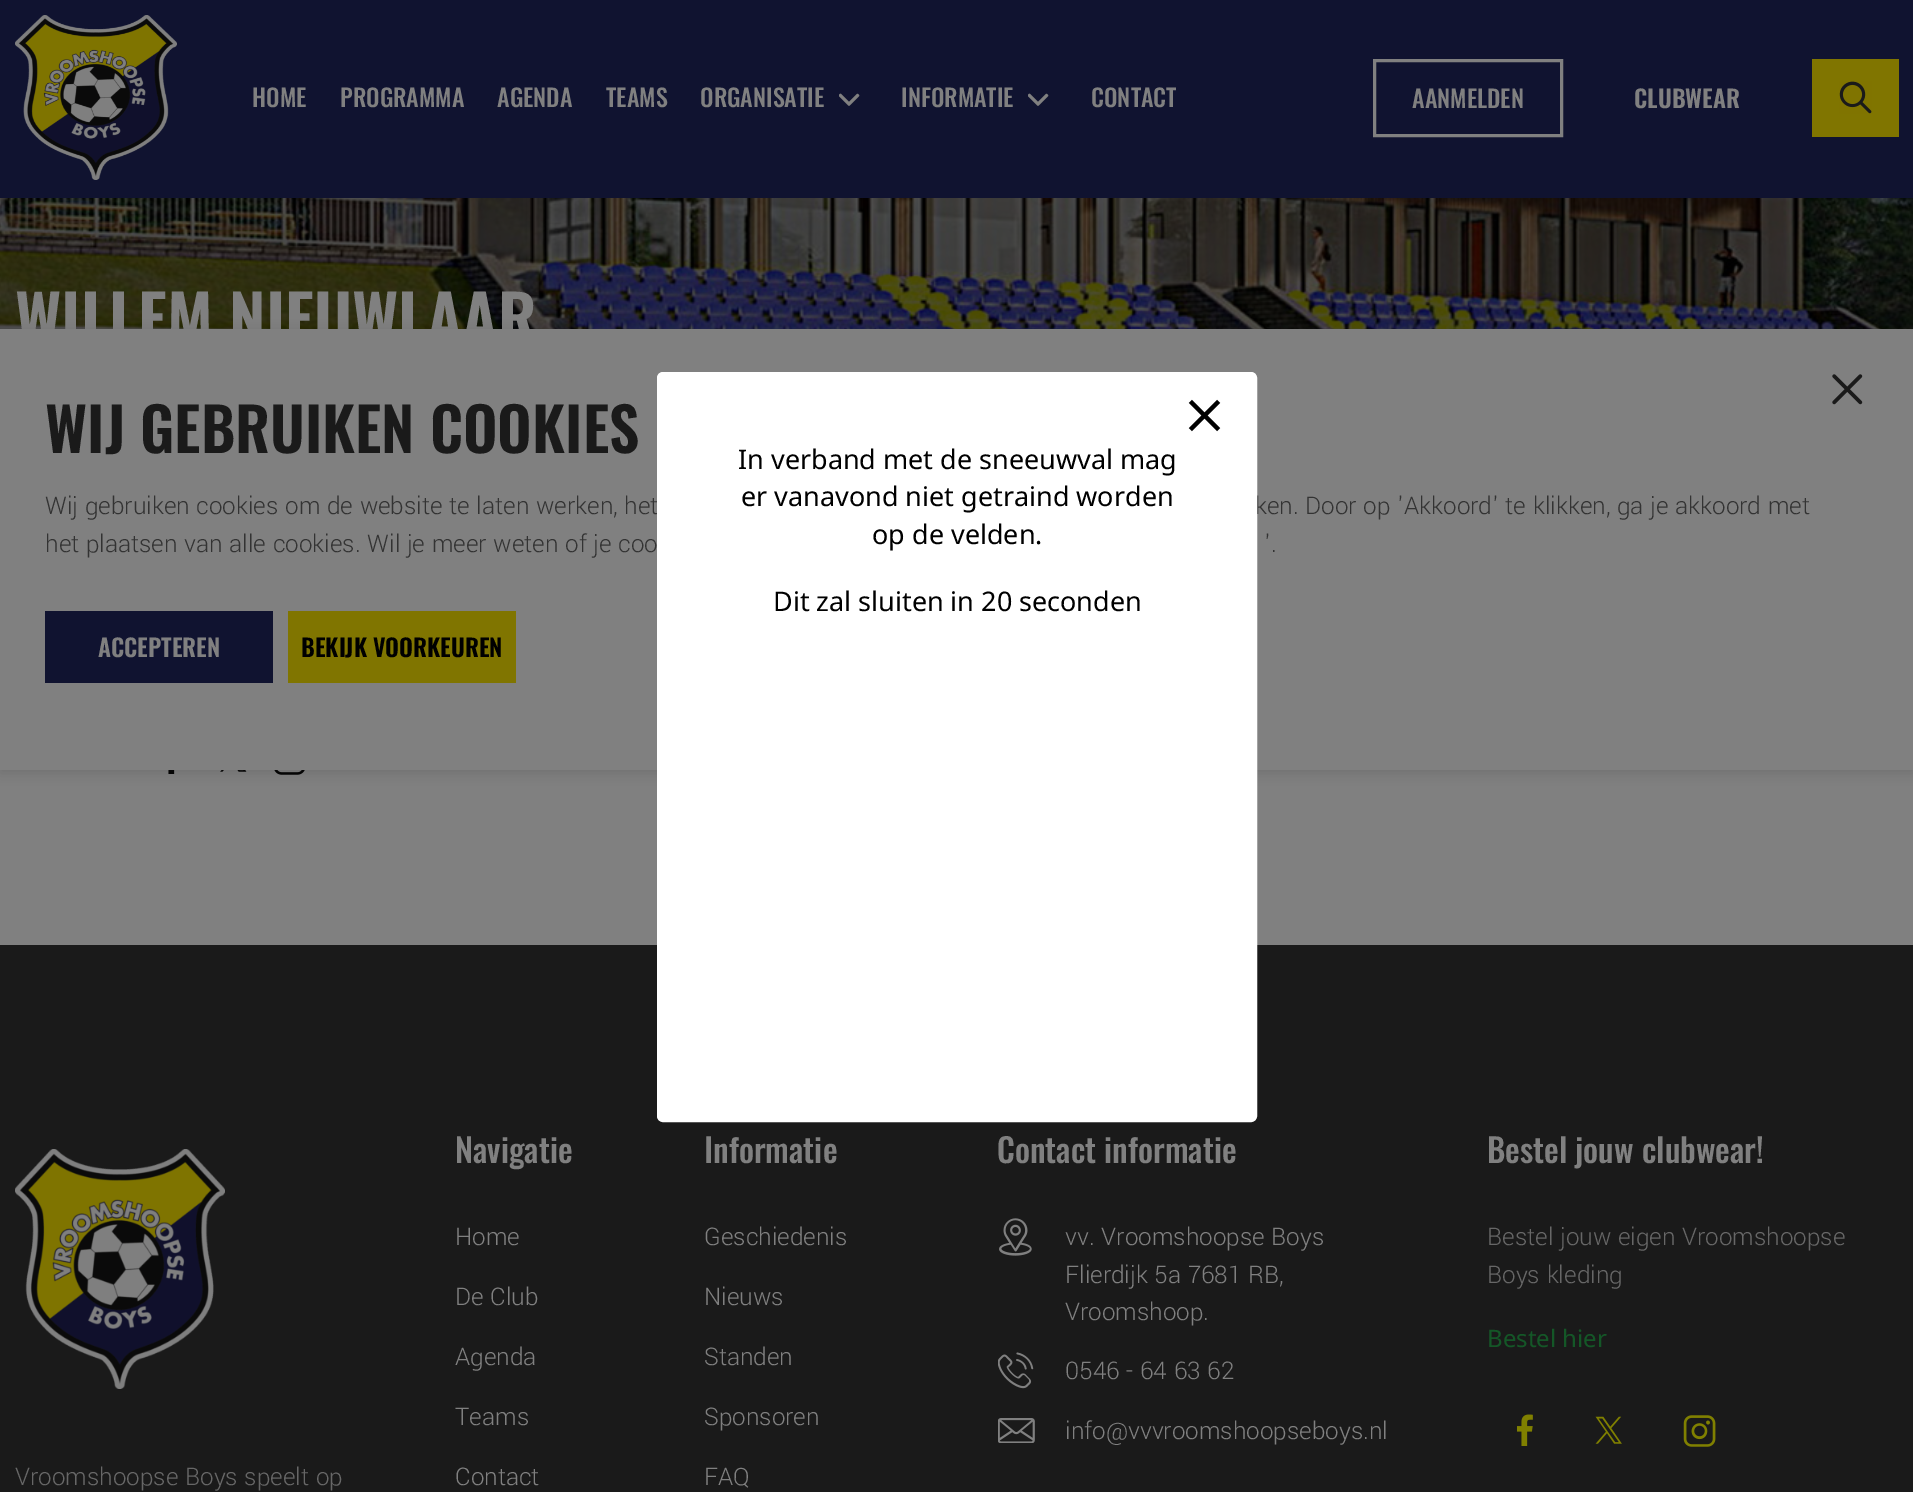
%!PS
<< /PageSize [1913 1492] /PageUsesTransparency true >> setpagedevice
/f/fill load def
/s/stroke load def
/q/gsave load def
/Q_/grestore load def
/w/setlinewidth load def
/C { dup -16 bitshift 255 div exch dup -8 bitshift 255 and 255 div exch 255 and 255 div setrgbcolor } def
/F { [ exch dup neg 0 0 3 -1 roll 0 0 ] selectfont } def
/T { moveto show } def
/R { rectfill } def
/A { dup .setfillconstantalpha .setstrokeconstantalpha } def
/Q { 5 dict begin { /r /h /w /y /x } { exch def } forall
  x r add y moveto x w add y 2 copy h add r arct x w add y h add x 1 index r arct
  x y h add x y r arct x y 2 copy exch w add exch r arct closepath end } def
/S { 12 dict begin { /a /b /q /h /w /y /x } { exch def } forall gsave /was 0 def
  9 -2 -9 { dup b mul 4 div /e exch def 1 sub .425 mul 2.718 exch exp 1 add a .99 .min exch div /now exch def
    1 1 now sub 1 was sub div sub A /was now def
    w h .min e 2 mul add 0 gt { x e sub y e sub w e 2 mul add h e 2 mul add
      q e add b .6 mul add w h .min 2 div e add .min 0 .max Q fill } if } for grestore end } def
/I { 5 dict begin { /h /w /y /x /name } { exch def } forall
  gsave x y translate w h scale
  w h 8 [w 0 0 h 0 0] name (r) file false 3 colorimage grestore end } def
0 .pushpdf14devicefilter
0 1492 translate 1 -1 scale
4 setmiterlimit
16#808080 C
0 0 1913 1492 R
16#101330 C
0 0 1913 198 R
(1.rgb) 15 15 162 165 I
/Oswald-Medium 24 F
16#808080 C
(HOME) 252 107 T
(PROGRAMMA) 340 107 T
(AGENDA) 497 107 T
(TEAMS) 606 107 T
(ORGANISATIE) 700 107 T
(2.rgb) 839 93 21 13 I
(INFORMATIE) 901 107 T
(2.rgb) 1028 93 21 13 I
(CONTACT) 1091 107 T
3 w
1374.5 60.5 187 75 rectstroke
(AANMELDEN) 1412 108 T
/Oswald-SemiBold 24 F
(CLUBWEAR) 1634 108 T
16#807500 C
1812 59 87 78 R
(3.rgb) 1839 81 33 33 I
(4.rgb) 0 198 1913 131 I
/Oswald-SemiBold 66 F
16#808080 C
(WILLEM NIEUWLAAR) 15 345 T
(5.rgb) 168 770 7 4 I
(6.rgb) 220 770 27 2 I
(7.rgb) 274 770 31 5 I
16#323232 C
0 332 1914 441 0 6 .2 S
16#808080 C
0 329 1913 441 R
(8.rgb) 1832 374 31 31 I
/Oswald-SemiBold 60 F
16#1A1A1A C
(WIJ GEBRUIKEN COOKIES) 45 453 T
/Yantramanav-Light 27 F
16#333333 C
(Wij gebruiken cookies om de website te laten werken, het) 45 514 T
(ken. Door op 'Akkoord' te klikken, ga je akkoord met) 1255 514 T
(het plaatsen van alle cookies. Wil je meer weten of je coo) 45 552 T
('.) 1264 552 T
16#101330 C
45 611 228 72 R
/Oswald-SemiBold 24 F
16#808080 C
(ACCEPTEREN) 98 657 T
16#807500 C
288 611 228 72 R
16#000000 C
(BEKIJK VOORKEUREN) 301 657 T
16#1A1A1A C
0 945 1913 547 R
16#FFFFFF C
658 373 598 748 5 Q q f Q_
2 w
s
(9.rgb) 1188 399 33 33 I
/NotoSans-Regular 27 F
16#000000 C
(In verband met de sneeuwval mag) 738 469 T
(er vanavond niet getraind worden) 741 506 T
(op de velden.) 872 544 T
(Dit zal sluiten in 20 seconden) 773 611 T
/Oswald-Medium 33 F
16#808080 C
(Navigatie) 455 1163 T
/Yantramanav-Light 27 F
(Home) 455 1245 T
(De Club) 455 1305 T
(Agenda) 455 1365 T
(Teams) 455 1425 T
(Contact) 455 1485 T
/Oswald-Medium 33 F
(Informatie) 704 1163 T
/Yantramanav-Light 27 F
(Geschiedenis) 704 1245 T
(Nieuws) 704 1305 T
(Standen) 704 1365 T
(Sponsoren) 704 1425 T
(FAQ) 704 1485 T
/Oswald-Medium 33 F
(Contact informatie) 997 1163 T
(10.rgb) 999 1218 33 38 I
/Yantramanav-Light 27 F
(vv. Vroomshoopse Boys) 1065 1245 T
(Flierdijk 5a 7681 RB,) 1065 1283 T
(Vroomshoop.) 1065 1320 T
(11.rgb) 998 1352 36 37 I
(0546 - 64 63 62) 1065 1379 T
(12.rgb) 998 1418 37 25 I
(info@vvvroomshoopseboys.nl) 1065 1439 T
/Oswald-Medium 33 F
(Bestel jouw clubwear!) 1487 1163 T
/Yantramanav-Light 27 F
16#676767 C
(Bestel jouw eigen Vroomshoopse) 1487 1245 T
(Boys kleding) 1487 1283 T
/NotoSans-Regular 24 F
16#145727 C
(Bestel hier) 1487 1347 T
(13.rgb) 1517 1414 16 32 I
(14.rgb) 1595 1416 27 28 I
(15.rgb) 1683 1415 33 32 I
(16.rgb) 15 1149 210 240 I
/Yantramanav-Light 27 F
16#676767 C
(Vroomshoopse Boys speelt op) 15 1485 T
.poppdf14devicefilter showpage
